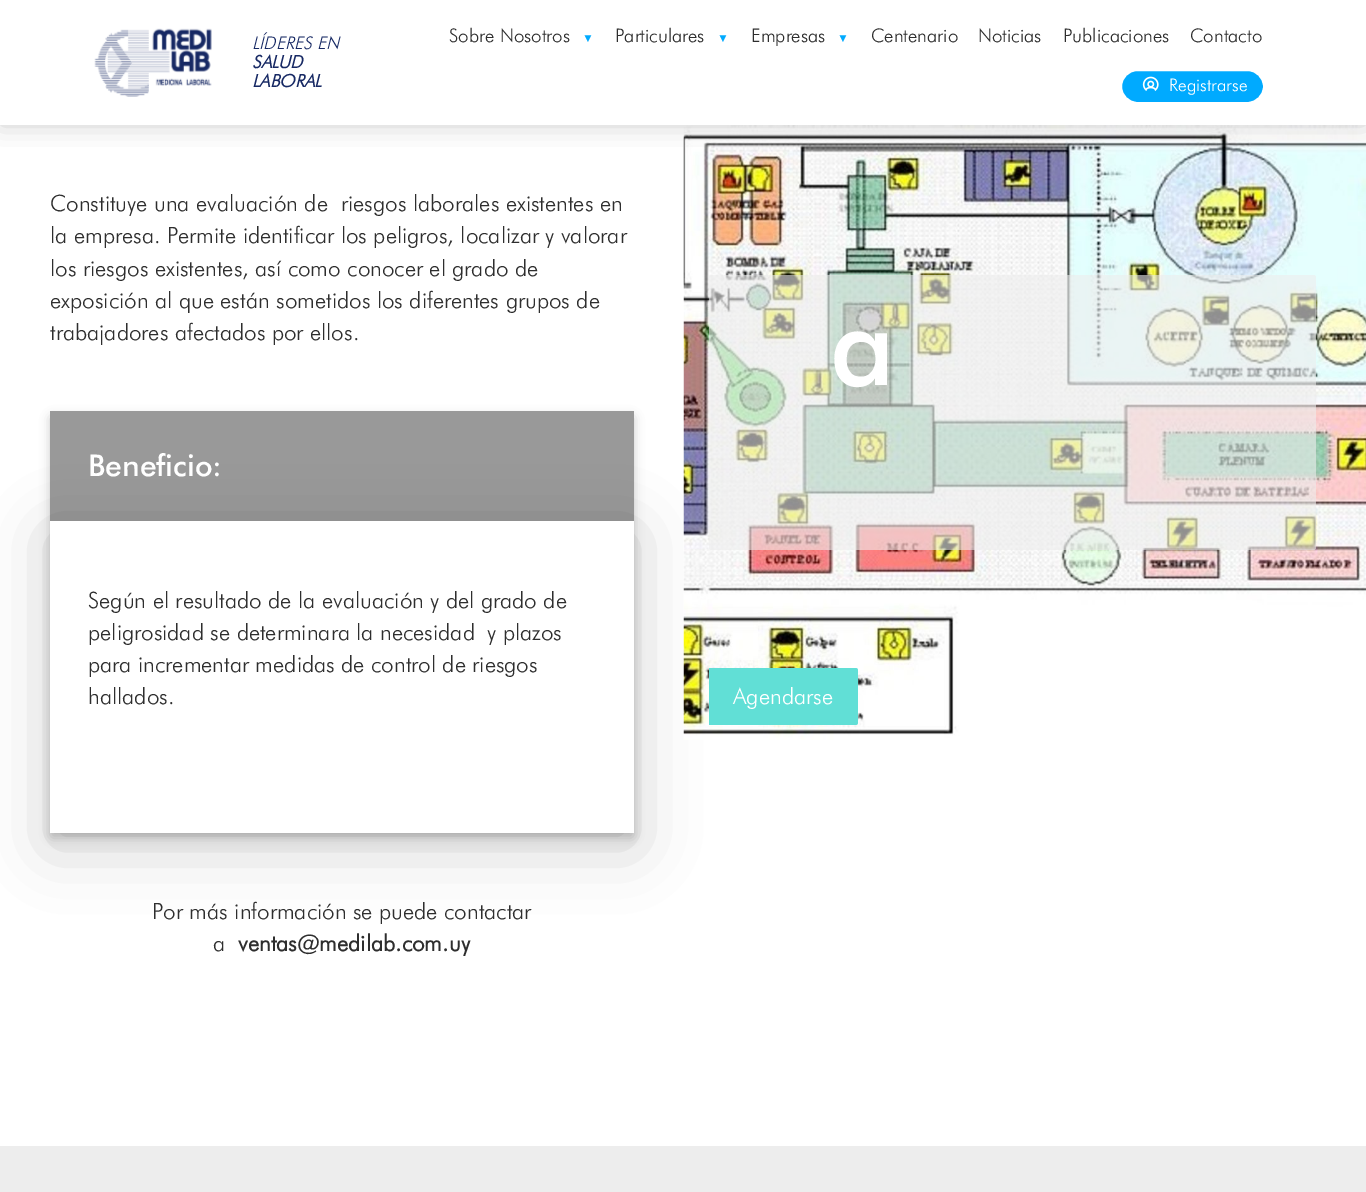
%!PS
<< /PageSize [1366 1192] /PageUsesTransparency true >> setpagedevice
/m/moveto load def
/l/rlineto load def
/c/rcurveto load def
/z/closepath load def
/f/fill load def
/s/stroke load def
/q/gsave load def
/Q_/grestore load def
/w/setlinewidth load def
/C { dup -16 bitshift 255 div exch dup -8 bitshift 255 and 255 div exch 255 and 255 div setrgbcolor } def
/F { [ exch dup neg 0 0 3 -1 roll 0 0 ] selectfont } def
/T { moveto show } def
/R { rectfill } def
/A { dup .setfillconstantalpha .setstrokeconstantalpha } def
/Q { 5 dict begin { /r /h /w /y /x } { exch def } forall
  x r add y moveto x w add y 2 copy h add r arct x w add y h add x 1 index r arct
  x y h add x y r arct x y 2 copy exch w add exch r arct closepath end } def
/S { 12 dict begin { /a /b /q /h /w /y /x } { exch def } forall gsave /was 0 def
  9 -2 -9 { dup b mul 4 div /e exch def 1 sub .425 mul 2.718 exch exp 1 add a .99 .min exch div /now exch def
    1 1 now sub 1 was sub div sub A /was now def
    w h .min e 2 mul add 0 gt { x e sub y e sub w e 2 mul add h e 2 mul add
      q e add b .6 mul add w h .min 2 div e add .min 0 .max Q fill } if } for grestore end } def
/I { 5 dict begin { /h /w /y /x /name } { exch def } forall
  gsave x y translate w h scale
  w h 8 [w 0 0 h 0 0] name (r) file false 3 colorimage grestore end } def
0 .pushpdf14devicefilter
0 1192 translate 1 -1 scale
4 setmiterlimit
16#FFFFFF C
0 0 1366 1192 R
16#000000 C
50 416 584 422 2.5 5 .2 S
16#999999 C
50 411 584 110 R
16#000000 C
50 534 584 311 0 31 .2 S
(3.rgb) 683 125 683 615 I
q
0 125 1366 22 rectclip
16#999999 C
0 0 1366 125 0 12.5 .5 S
Q_
(1.rgb) 94 28 118 69 I
/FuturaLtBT-LightItalic 17.5 F
16#172964 C
(LÍDERES EN) 252 49 T
/FuturaLtBT-BoldItalic 17.5 F
(SALUD) 252 68 T
(LABORAL) 252 87 T
/FuturaLtBT-Light 18.75 F
16#2E2E2E C
(Sobre Nosotros) 449 42 T
/LiberationSerif-Regular 12 F
16#00AAFF C
(▼) 582 42 T
/FuturaLtBT-Light 18.75 F
16#2E2E2E C
(Particulares) 615 42 T
/LiberationSerif-Regular 12 F
16#00AAFF C
(▼) 717 42 T
/FuturaLtBT-Light 18.75 F
16#2E2E2E C
(Empresas) 751 42 T
/LiberationSerif-Regular 12 F
16#00AAFF C
(▼) 837 42 T
/FuturaLtBT-Light 18.75 F
16#2E2E2E C
(Centenario) 871 42 T
(Noticias) 978 42 T
(Publicaciones) 1063 42 T
(Contacto) 1190 42 T
16#00AAFF C
1120.5 69.5 144 34 17 Q q f Q_
16#FFFFFF C
3 w
s
(2.rgb) 1142 76 17 15 I
/FuturaLtBT-Light 17.5 F
(Registrarse) 1169 91 T
/FuturaLtBT-Light 22.5 F
16#2E2E2E C
(Constituye una evaluación de) 50 211 T
(riesgos laborales existentes en) 341 211 T
(la empresa. Permite identificar los peligros, localizar y valorar) 50 243 T
(los riesgos existentes, así como conocer el grado de) 50 276 T
(exposición al que están sometidos los diferentes grupos de) 50 308 T
(trabajadores afectados por ellos.) 50 340 T
/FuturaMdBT-Medium 30 F
16#FFFFFF C
(Beneficio:) 88 476 T
50 521 584 312 R
/FuturaLtBT-Light 22.5 F
16#2E2E2E C
(Según el resultado de la evaluación y del grado de) 88 608 T
(peligrosidad se determinara la necesidad) 88 640 T
(y plazos) 487 640 T
(para incrementar medidas de control de riesgos) 88 672 T
(hallados.) 88 704 T
(Por más información se puede contactar) 152 919 T
(a) 213 951 T
/FuturaLtBT-Bold 22.5 F
(ventas@medilab.com.uy) 238 951 T
0.6 A
16#EDEDED C
709 275 607 275 2.5 Q f
/FuturaMdBT-Medium 112 F
1 A
16#FFFFFF C
(a) 830 385 T
16#61DFD6 C
709 668 m 146.5 0 l 1.5 0 2.5 1 2.5 2.5 c 0 52 l 0 1.5 -1 2.5 -2.5 2.5 c -146.5 0 l z f
/FuturaLtBT-Light 22.5 F
16#FFFFFF C
(Agendarse) 733 704 T
16#EDEDED C
0 1146 1366 46 R
.poppdf14devicefilter showpage
